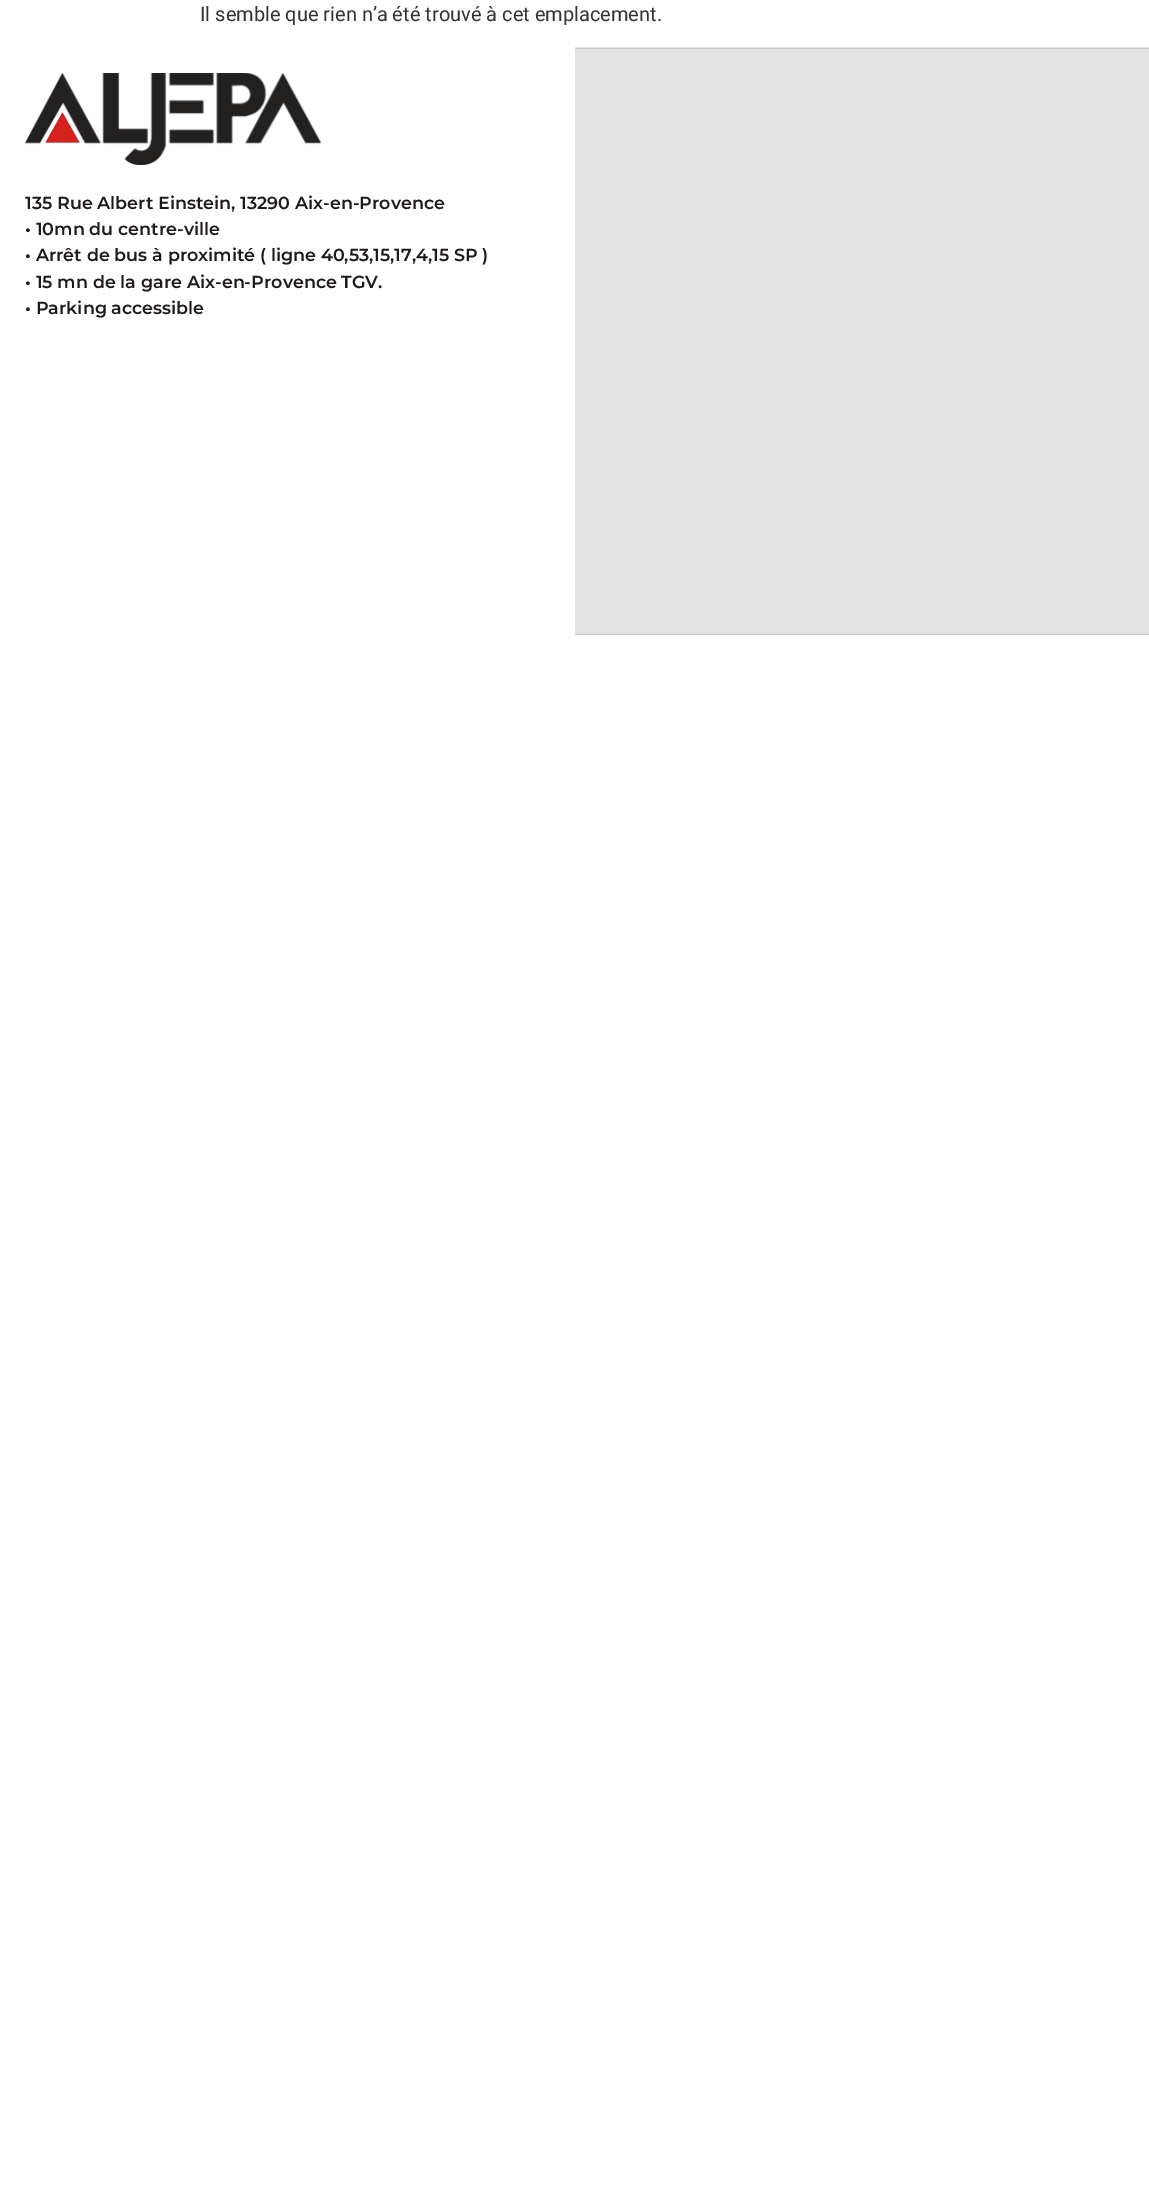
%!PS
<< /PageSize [1149 2211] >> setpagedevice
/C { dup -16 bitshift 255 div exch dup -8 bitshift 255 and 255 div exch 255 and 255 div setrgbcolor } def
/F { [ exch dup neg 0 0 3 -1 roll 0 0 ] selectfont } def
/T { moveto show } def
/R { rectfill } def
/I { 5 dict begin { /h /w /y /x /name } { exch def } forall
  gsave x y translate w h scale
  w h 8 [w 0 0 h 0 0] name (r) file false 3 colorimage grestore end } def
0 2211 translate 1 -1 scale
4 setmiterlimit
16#FFFFFF C
0 0 1149 2211 R
/Roboto-Regular 20 F
16#333333 C
(Il semble que rien n’a été trouvé à cet emplacement.) 200 21 T
(1.rgb) 25 73 296 92 I
/Montserrat-SemiBold 17.5 F
16#1F191A C
(135 Rue Albert Einstein, 13290 Aix-en-Provence) 25 209 T
(• 10mn du centre-ville) 25 235 T
(• Arrêt de bus à proximité \( ligne 40,53,15,17,4,15 SP \)) 25 261 T
(• 15 mn de la gare Aix-en-Provence TGV.) 25 288 T
(• Parking accessible) 25 314 T
(2.rgb) 575 47 574 588 I
showpage
